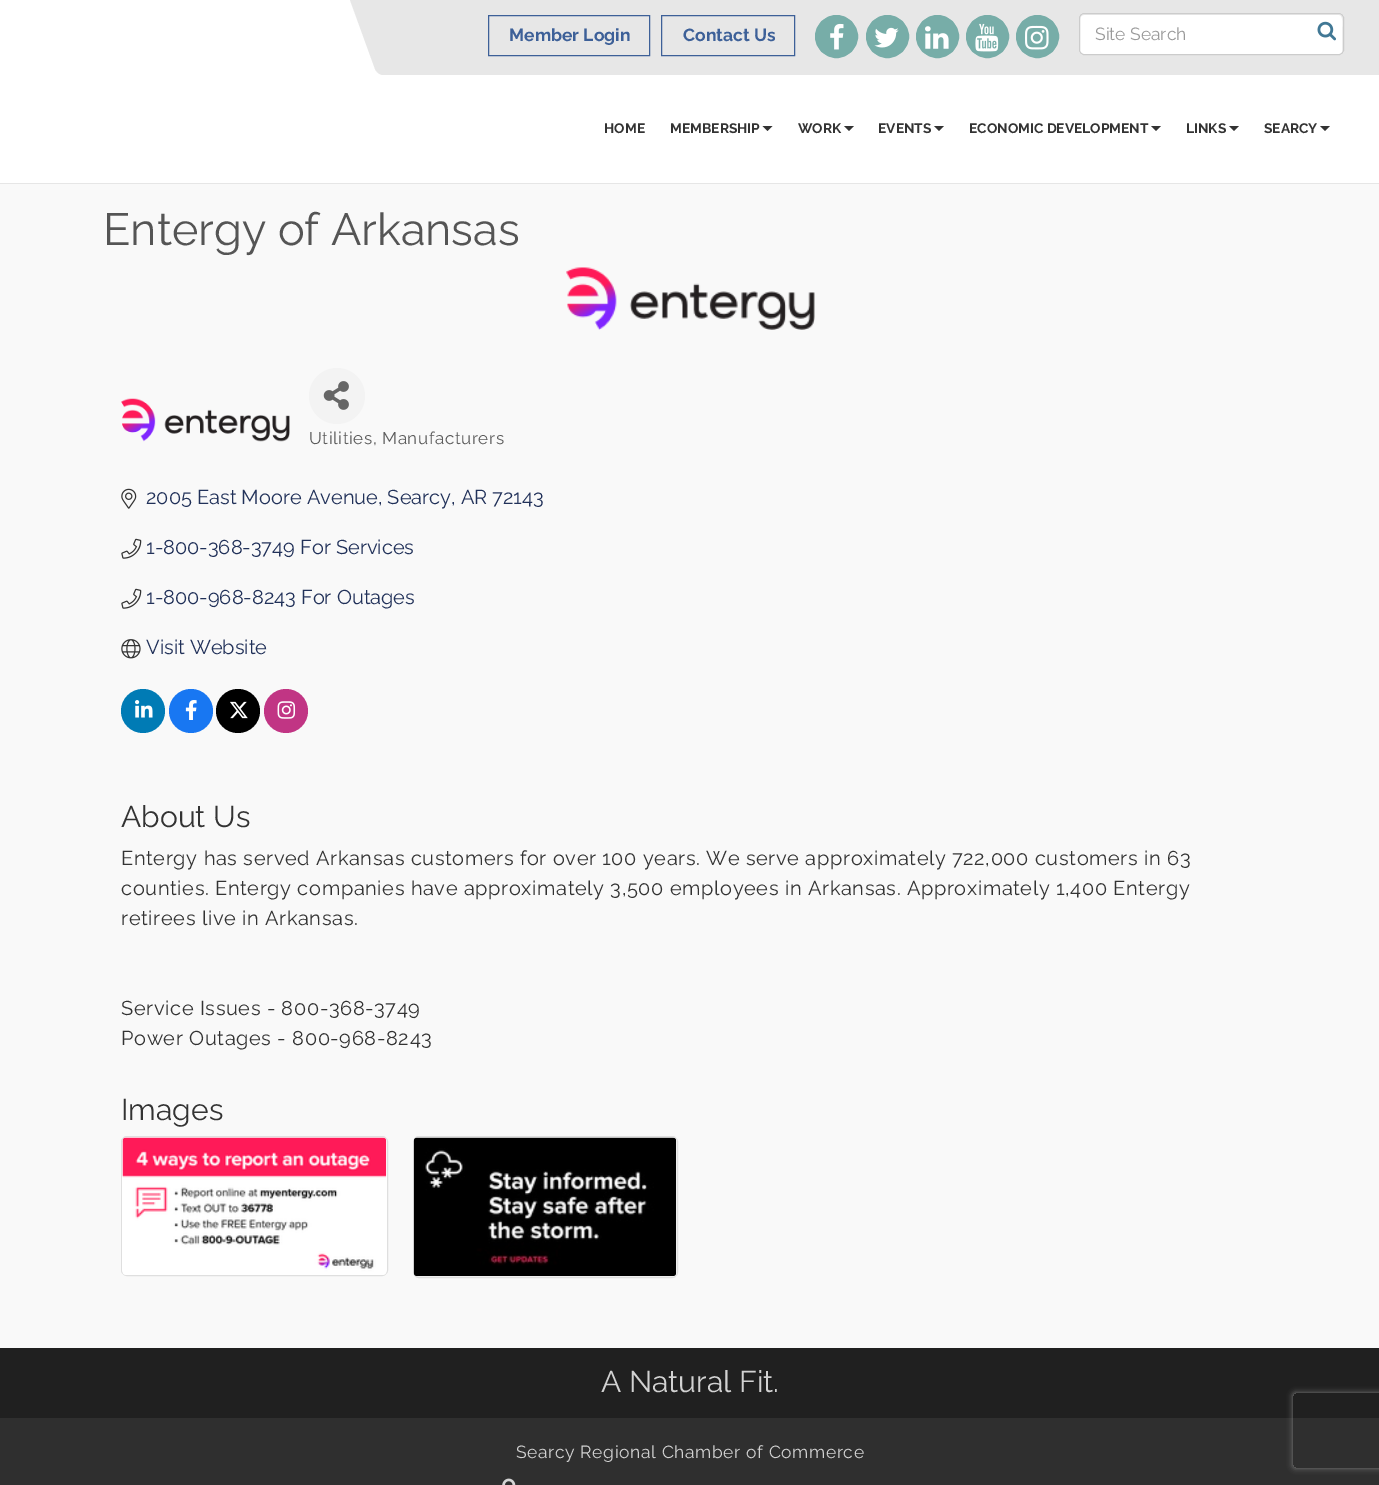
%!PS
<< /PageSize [1379 1485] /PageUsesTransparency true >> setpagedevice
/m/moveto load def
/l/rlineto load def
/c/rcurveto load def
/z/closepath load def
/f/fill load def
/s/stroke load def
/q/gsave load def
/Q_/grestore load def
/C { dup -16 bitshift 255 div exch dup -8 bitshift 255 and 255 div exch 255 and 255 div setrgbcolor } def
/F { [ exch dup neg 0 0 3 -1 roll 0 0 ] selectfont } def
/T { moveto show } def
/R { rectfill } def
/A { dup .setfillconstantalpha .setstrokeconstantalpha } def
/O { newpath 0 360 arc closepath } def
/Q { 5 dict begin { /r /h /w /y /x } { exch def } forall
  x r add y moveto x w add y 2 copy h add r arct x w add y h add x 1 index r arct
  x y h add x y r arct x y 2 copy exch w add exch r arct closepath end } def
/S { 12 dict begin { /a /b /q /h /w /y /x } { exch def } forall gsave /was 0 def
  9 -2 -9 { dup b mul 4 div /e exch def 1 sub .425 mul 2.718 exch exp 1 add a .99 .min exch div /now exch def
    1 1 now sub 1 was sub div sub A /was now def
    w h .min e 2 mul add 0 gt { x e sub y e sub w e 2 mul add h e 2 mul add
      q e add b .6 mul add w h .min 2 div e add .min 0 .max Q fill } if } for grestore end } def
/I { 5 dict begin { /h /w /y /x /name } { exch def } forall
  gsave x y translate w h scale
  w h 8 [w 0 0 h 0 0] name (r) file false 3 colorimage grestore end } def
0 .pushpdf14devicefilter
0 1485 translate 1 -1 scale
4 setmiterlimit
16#F9F9F9 C
0 0 1379 1485 R
16#FFFFFF C
0 0 1379 183 R
16#E6E6E6 C
0 183 1379 1 R
16#E7E7E7 C
350 0 m 980 0 l 27 75 l -974 0 l -3 0 -7 -3 -8 -6 c z f
16#3D6098 C
488.5 15.5 161 40 rectstroke
/Raleway-Bold 17.5 F
(Member Login) 509 41 T
661.5 15.5 133 40 rectstroke
(Contact Us) 683 41 T
16#77ADA8 C
836.5 36.5 21 O q f Q_
s
(1.rgb) 830 23 14 27 I
887.5 36.5 21 O q f Q_
s
(2.rgb) 874 27 25 21 I
937.5 36.5 21 O q f Q_
s
(3.rgb) 925 26 24 23 I
987.5 36.5 21 O q f Q_
s
(4.rgb) 975 23 24 29 I
1037.5 36.5 21 O q f Q_
s
(5.rgb) 1025 25 24 25 I
16#E7E7E7 C
1329 0 m 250 0 l 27 75 l -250 0 l z f
16#FFFFFF C
1079 13 265 42 5 Q f
16#ECECEC C
1084 15 m 255 0 l 5 0 3 13 3 15 c 0 23 l 0 -1 1 -2 1 -3 c 0 -32 l 0 -2 -2 -4 -4 -4 c -255 0 l -2 0 -4 2 -4 4 c 0 1 l 0 -2 2 -4 4 -4 c z f
16#CCCCCC C
1079.5 13.5 264 41 4.5 Q s
/Raleway-Regular 17.5 F
16#999999 C
(Site Search) 1095 40 T
(6.rgb) 1317 21 19 20 I
/Raleway-Bold 13.75 F
16#333333 C
(HOME) 604 133 T
(MEMBERSHIP) 670 133 T
762.5 126 m 10 0 l -5 5 l z f
(WORK) 798 133 T
844 126 m 10 0 l -5 5 l z f
(EVENTS) 878 133 T
934 126 m 10 0 l -5 5 l z f
(ECONOMIC DEVELOPMENT) 969 133 T
1151 126 m 10 0 l -5 5 l z f
(LINKS) 1186 133 T
1229 126 m 10 0 l -5 5 l z f
(SEARCY) 1264 133 T
1320 126 m 10 0 l -5 5 l z f
/Raleway-Regular 45 F
16#555555 C
(Entergy of Arkansas) 103 245 T
(7.rgb) 566 267 249 63 I
(8.rgb) 121 398 169 44 I
16#F3F3F3 C
337 396 28 O f
(9.rgb) 323 381 26 29 I
/Raleway-Regular 17 F
16#5B5B5B C
309 444 m .62 0 (Utilities, Manufacturers) ashow
(10.rgb) 121 488 16 21 I
/Raleway-Regular 20 F
16#213159 C
(2005 East Moore Avenue, Searcy, AR 72143) 146 504 T
(11.rgb) 121 538 21 21 I
(1-800-368-3749 For Services) 146 554 T
(11.rgb) 121 588 21 21 I
(1-800-968-8243 For Outages) 146 604 T
(12.rgb) 121 639 20 20 I
(Visit Website) 146 654 T
16#007BB5 C
143 711 22 O f
(13.rgb) 135 700 18 18 I
16#1877F2 C
191 711 22 O f
(14.rgb) 185 700 12 20 I
16#000000 C
238 711 22 O f
(15.rgb) 230 701 18 18 I
16#C13584 C
286 711 22 O f
(16.rgb) 277 701 19 18 I
/Raleway-Regular 30 F
16#333333 C
(About Us) 121 827 T
/Raleway-Regular 20 F
121 865 m .62 0 (Entergy has served Arkansas customers for over 100 years. We serve approximately 722,000 customers in 63) ashow
121 895 m .62 0 (counties. Entergy companies have approximately 3,500 employees in Arkansas. Approximately 1,400 Entergy) ashow
121 925 m .62 0 (retirees live in Arkansas.) ashow
121 1015 m .62 0 (Service Issues - 800-368-3749) ashow
121 1045 m .62 0 (Power Outages - 800-968-8243) ashow
/Raleway-Regular 30 F
(Images) 121 1120 T
16#FFFFFF C
121.5 1136.5 266 139 5.5 Q q f Q_
16#DFDFDF C
s
(17.rgb) 122 1137 265 138 I
16#FFFFFF C
413.5 1136.5 264 141 5.5 Q q f Q_
16#DFDFDF C
s
(18.rgb) 413 1137 264 140 I
16#202020 C
0 1348 1379 70 R
16#D2D2D2 C
(A Natural Fit.) 601 1392 T
16#2F2F2F C
0 1418 1379 67 R
/Raleway-Regular 17.5 F
16#D2D2D2 C
516 1458 m .62 0 (Searcy Regional Chamber of Commerce) ashow
(19.rgb) 502 1478 14 7 I
q
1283 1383 m 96 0 l 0 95 l -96 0 l z 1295.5 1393 m 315 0 l 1.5 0 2.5 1 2.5 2.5 c 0 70 l 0 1.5 -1 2.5 -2.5 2.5 c -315 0 l -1.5 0 -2.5 -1 -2.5 -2.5 c 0 -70 l 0 -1.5 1 -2.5 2.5 -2.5 c z eoclip newpath
16#808080 C
1293 1393 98 75 2.5 3 1 S
Q_
.poppdf14devicefilter showpage
